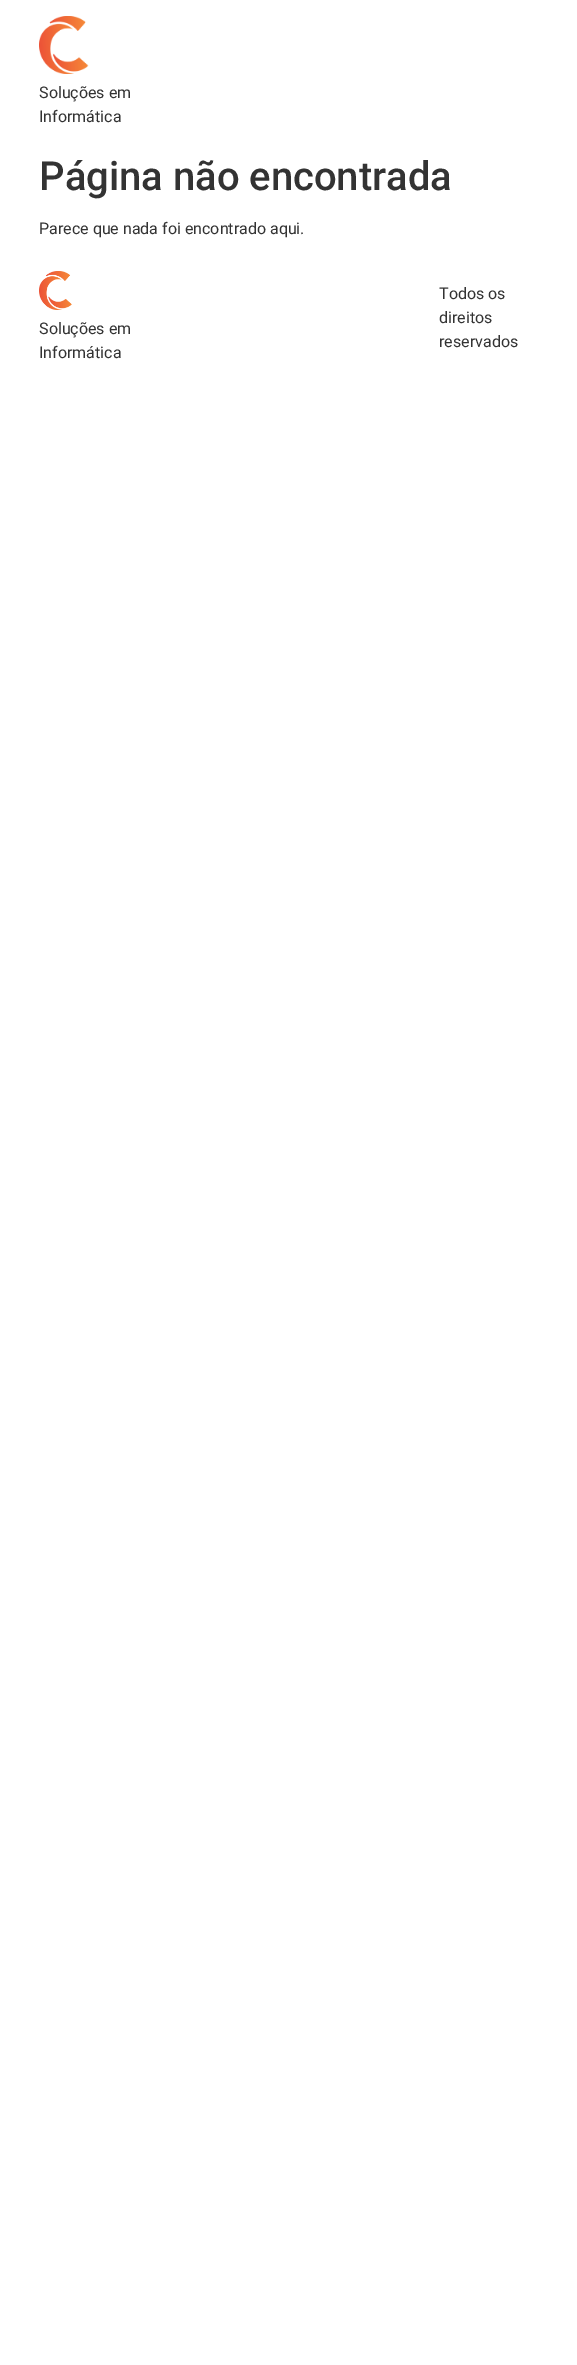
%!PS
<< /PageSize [577 2365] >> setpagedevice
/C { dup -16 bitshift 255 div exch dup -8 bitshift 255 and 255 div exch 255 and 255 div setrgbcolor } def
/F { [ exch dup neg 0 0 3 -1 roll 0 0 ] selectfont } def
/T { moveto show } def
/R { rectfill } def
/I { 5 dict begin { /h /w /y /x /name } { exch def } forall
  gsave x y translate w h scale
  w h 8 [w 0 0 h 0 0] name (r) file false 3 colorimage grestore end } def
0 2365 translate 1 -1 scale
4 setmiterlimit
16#FFFFFF C
0 0 577 2365 R
(1.rgb) 39 16 50 58 I
/Roboto-Regular 16 F
16#333333 C
(Soluções em) 39 98 T
(Informática) 39 122 T
/Roboto-Medium 40 F
(Página não encontrada) 39 190 T
/Roboto-Regular 16 F
(Parece que nada foi encontrado aqui.) 39 234 T
(2.rgb) 39 271 33 39 I
(Soluções em) 39 334 T
(Informática) 39 358 T
(Todos os) 439 299 T
(direitos) 439 323 T
(reservados) 439 347 T
showpage
